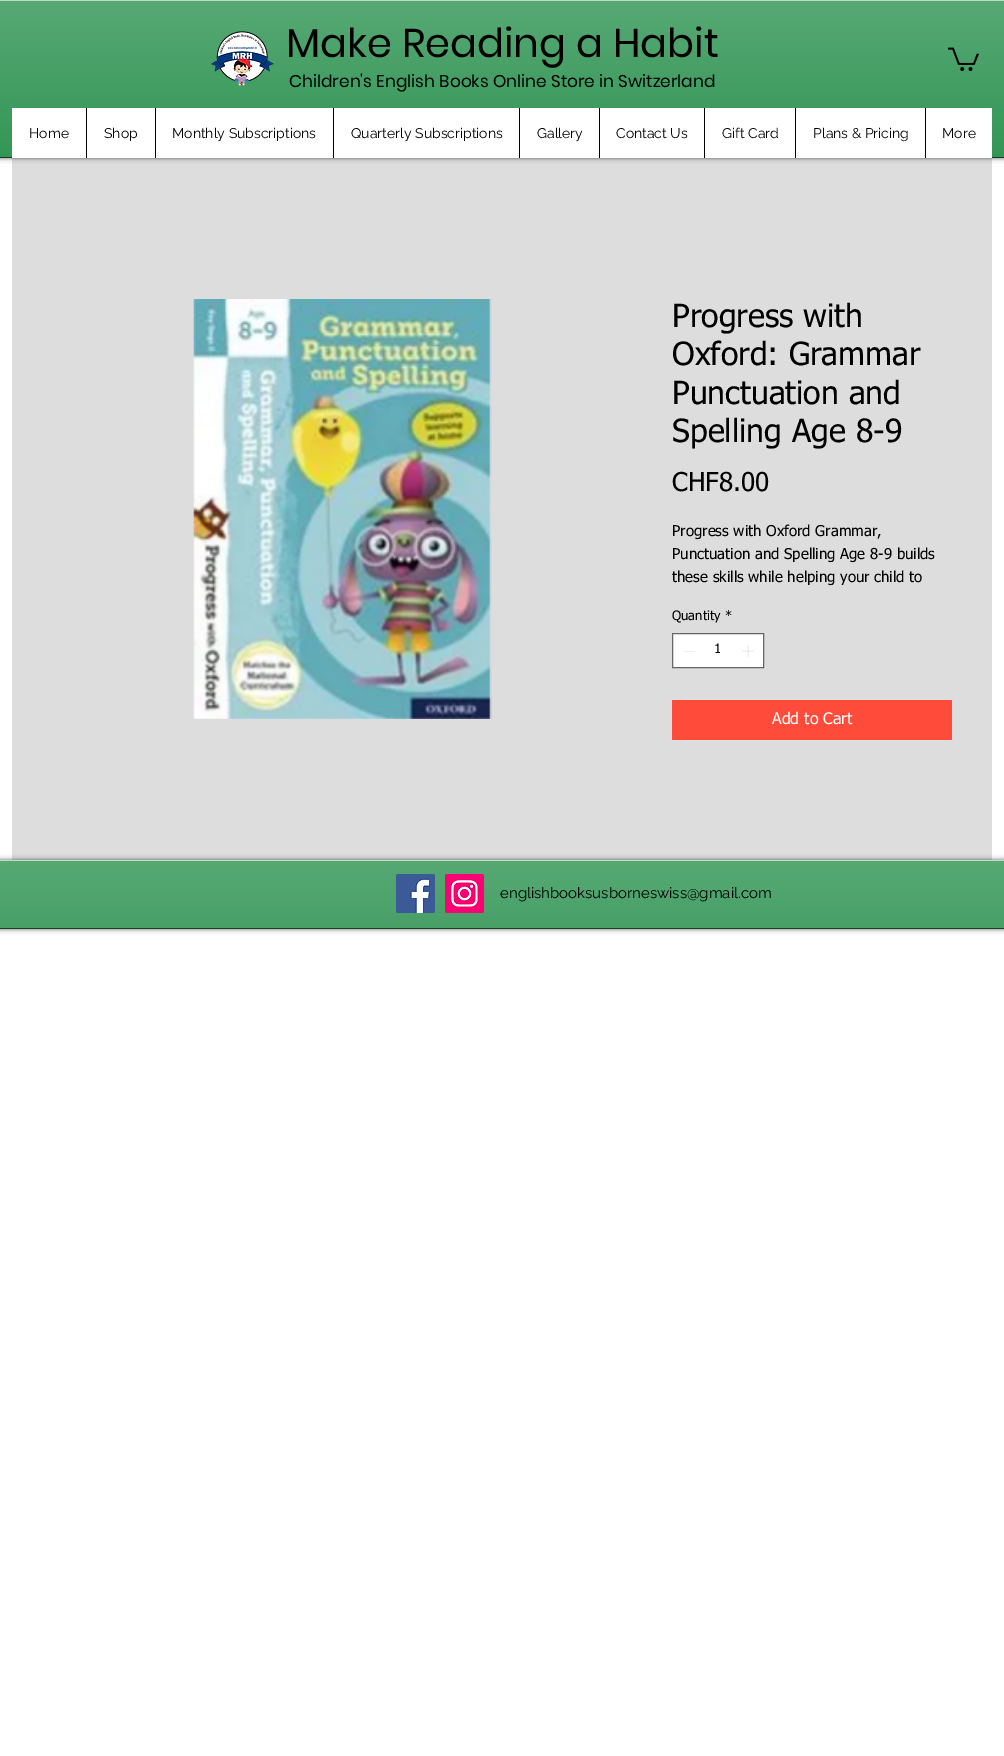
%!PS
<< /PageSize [1004 1756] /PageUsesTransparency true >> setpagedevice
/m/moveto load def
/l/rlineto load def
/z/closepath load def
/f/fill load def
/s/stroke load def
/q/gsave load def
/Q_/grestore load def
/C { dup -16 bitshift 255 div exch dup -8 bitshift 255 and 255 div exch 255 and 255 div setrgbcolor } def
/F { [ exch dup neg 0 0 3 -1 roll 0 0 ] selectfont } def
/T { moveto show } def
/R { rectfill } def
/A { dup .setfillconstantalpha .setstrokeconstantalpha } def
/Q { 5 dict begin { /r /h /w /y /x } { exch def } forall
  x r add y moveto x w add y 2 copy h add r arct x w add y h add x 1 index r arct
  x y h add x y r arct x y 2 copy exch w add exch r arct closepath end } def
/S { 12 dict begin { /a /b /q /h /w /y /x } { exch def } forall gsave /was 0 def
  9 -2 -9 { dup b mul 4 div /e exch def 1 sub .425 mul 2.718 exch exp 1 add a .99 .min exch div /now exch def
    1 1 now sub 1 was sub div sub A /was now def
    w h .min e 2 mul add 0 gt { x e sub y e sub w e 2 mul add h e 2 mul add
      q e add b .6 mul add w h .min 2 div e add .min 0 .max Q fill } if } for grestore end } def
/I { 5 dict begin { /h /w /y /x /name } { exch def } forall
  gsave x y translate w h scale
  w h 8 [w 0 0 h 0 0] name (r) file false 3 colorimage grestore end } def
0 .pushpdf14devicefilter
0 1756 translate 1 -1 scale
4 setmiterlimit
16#FFFFFF C
0 0 1004 1756 R
16#DDDDDD C
12 158 980 702 R
16#000000 C
0 0 1004 158 0 2.5 .6 S
16#1C8A43 C
0 1 1004 156 R
(1.rgb) 0 1 1004 156 I
16#143C22 C
0 157 1004 1 R
16#BCDCC7 C
0 0 1004 1 R
(2.rgb) 211 31 63 55 I
/Poppins-Regular 40 F
16#000000 C
(Make Reading a Habit) 286 57 T
/Poppins-Regular 17 F
(Children's English Books Online Store in Switzerland) 289 87 T
(3.rgb) 948 47 31 24 I
16#FFFFFF C
12 108 980 50 R
/Raleway-Regular 14 F
16#000000 C
(Home) 29 138 T
86 108 1 50 R
(Shop) 104 138 T
155 108 1 50 R
(Monthly Subscriptions) 172 138 T
333 108 1 50 R
(Quarterly Subscriptions) 351 138 T
519 108 1 50 R
(Gallery) 537 138 T
599 108 1 50 R
(Contact Us) 616 138 T
704 108 1 50 R
(Gift Card) 722 138 T
795 108 1 50 R
(Plans & Pricing) 813 138 T
925 108 1 50 R
(More) 942 138 T
(4.rgb) 193 299 299 420 I
/tahoma-Regular 32 F
(Progress with) 672 327 T
(Oxford: Grammar) 672 365 T
(Punctuation and) 672 404 T
(Spelling Age 8-9) 672 442 T
/tahoma-Regular 26 F
(CHF8.00) 672 491 T
/tahoma-Regular 15 F
(Progress with Oxford Grammar,) 672 536 T
(Punctuation and Spelling Age 8-9 builds) 672 559 T
(these skills while helping your child to) 672 582 T
/tahoma-Regular 13 F
(Quantity *) 672 620 T
16#FFFFFF C
672.5 633.5 m 91 0 l 0 34 l -91 0 l z q f Q_
16#666666 C
s
16#E3E3E3 C
695 651 m 0 .5 l -12 0 l 0 -.5 l z eofill
16#000000 C
(1) 714 653 T
(5.rgb) 742 645 12 12 I
16#FF4B39 C
672 700 280 40 R
/tahoma-Regular 16 F
16#FFFFFF C
(Add to Cart) 772 724 T
16#000000 C
0 860 1004 69 0 2.5 .6 S
16#1C8A43 C
0 861 1004 67 R
(6.rgb) 0 861 1004 67 I
16#1C4029 C
0 928 1004 1 R
16#BCDCC7 C
0 860 1004 1 R
(7.rgb) 396 874 39 39 I
(8.rgb) 445 874 39 39 I
/Raleway-Regular 15 F
16#000000 C
(englishbooksusborneswiss@gmail.com) 500 898 T
.poppdf14devicefilter showpage
